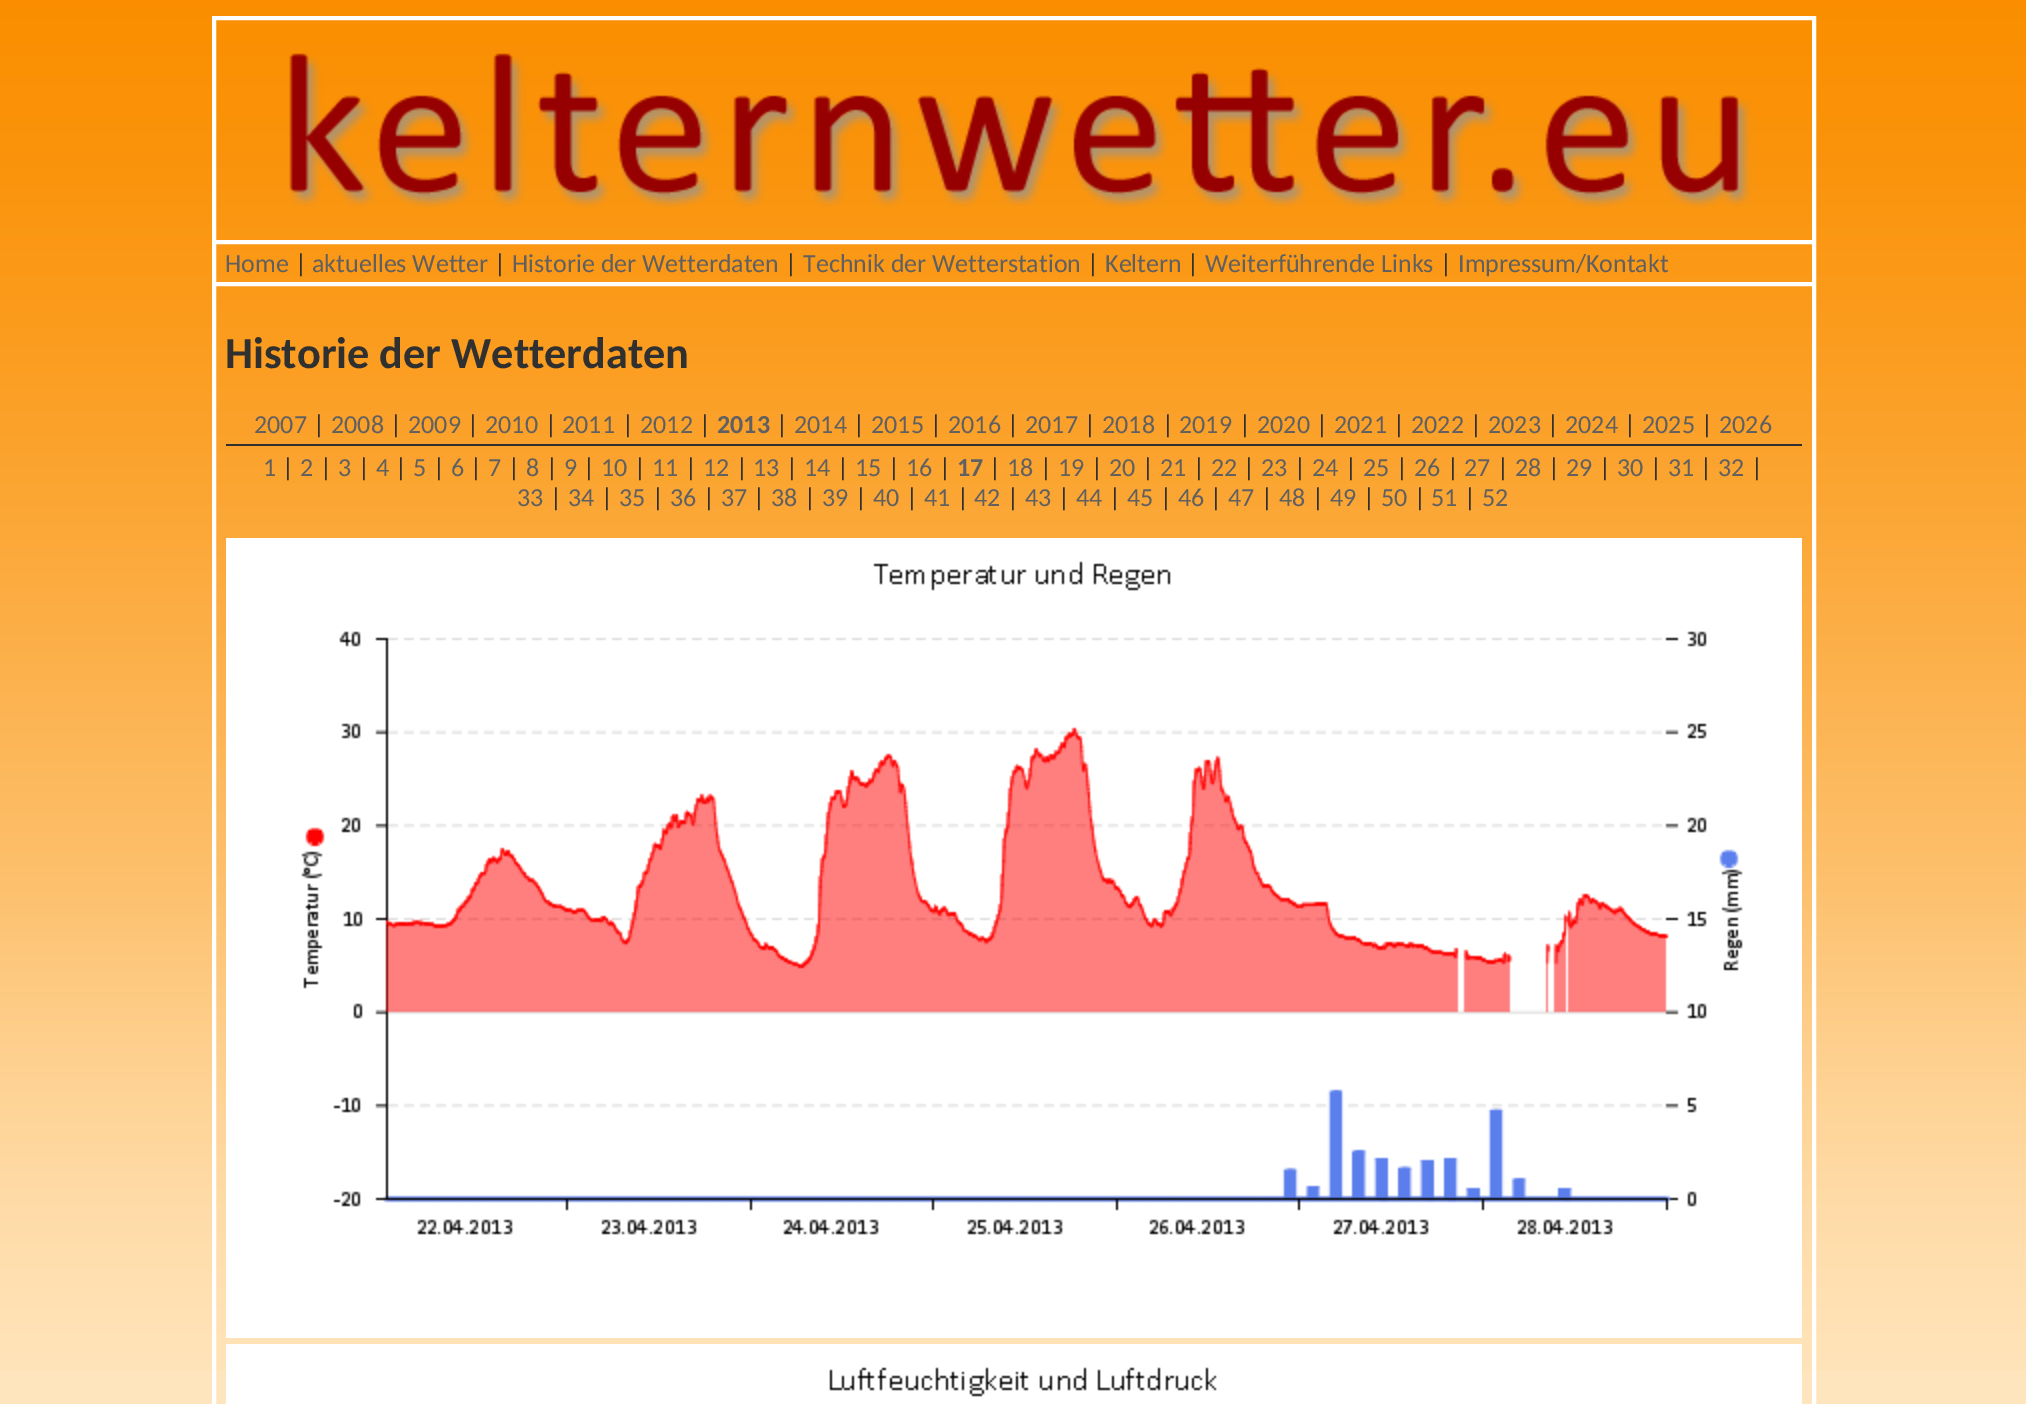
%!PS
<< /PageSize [2026 1404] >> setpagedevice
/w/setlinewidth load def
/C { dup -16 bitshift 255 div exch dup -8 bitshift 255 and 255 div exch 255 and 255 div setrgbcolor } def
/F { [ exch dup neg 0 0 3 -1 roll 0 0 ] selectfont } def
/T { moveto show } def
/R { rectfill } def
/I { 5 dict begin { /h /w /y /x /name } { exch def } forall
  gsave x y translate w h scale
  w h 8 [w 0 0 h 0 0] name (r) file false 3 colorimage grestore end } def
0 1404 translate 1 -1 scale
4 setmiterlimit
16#FFE5BD C
0 0 2026 1404 R
(1.rgb) 0 0 2026 1370 I
16#FFFFFF C
2 w
213 17 1602 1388 rectstroke
215 19 1598 222 rectstroke
(2.rgb) 289 53 1462 154 I
215 243 1598 40 rectstroke
/Carlito-Regular 26 F
16#606060 C
(Home) 225 272 T
16#303030 C
(|) 295 272 T
16#606060 C
(aktuelles Wetter) 312 272 T
16#303030 C
(|) 494 272 T
16#606060 C
(Historie der Wetterdaten) 512 272 T
16#303030 C
(|) 785 272 T
16#606060 C
(Technik der Wetterstation) 803 272 T
16#303030 C
(|) 1087 272 T
16#606060 C
(Keltern) 1105 272 T
16#303030 C
(|) 1187 272 T
16#606060 C
(Weiterführende Links) 1205 272 T
16#303030 C
(|) 1440 272 T
16#606060 C
(Impressum/Kontakt) 1458 272 T
16#FFFFFF C
215 285 1598 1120 rectstroke
/Carlito-Bold 44.25 F
16#303030 C
(Historie der Wetterdaten) 225 368 T
/Carlito-Regular 26 F
16#606060 C
(2007) 254 433 T
16#303030 C
(|) 313 433 T
16#606060 C
(2008) 331 433 T
16#303030 C
(|) 390 433 T
16#606060 C
(2009) 408 433 T
16#303030 C
(|) 467 433 T
16#606060 C
(2010) 485 433 T
16#303030 C
(|) 545 433 T
16#606060 C
(2011) 562 433 T
16#303030 C
(|) 622 433 T
16#606060 C
(2012) 640 433 T
16#303030 C
(|) 699 433 T
/Carlito-Bold 26 F
16#606060 C
(2013) 717 433 T
/Carlito-Regular 26 F
16#303030 C
(|) 776 433 T
16#606060 C
(2014) 794 433 T
16#303030 C
(|) 853 433 T
16#606060 C
(2015) 871 433 T
16#303030 C
(|) 930 433 T
16#606060 C
(2016) 948 433 T
16#303030 C
(|) 1007 433 T
16#606060 C
(2017) 1025 433 T
16#303030 C
(|) 1084 433 T
16#606060 C
(2018) 1102 433 T
16#303030 C
(|) 1162 433 T
16#606060 C
(2019) 1179 433 T
16#303030 C
(|) 1239 433 T
16#606060 C
(2020) 1257 433 T
16#303030 C
(|) 1316 433 T
16#606060 C
(2021) 1334 433 T
16#303030 C
(|) 1393 433 T
16#606060 C
(2022) 1411 433 T
16#303030 C
(|) 1470 433 T
16#606060 C
(2023) 1488 433 T
16#303030 C
(|) 1547 433 T
16#606060 C
(2024) 1565 433 T
16#303030 C
(|) 1624 433 T
16#606060 C
(2025) 1642 433 T
16#303030 C
(|) 1701 433 T
16#606060 C
(2026) 1719 433 T
16#303030 C
226 444 1576 2 R
16#606060 C
(1) 263 476 T
16#303030 C
(|) 282 476 T
16#606060 C
(2) 300 476 T
16#303030 C
(|) 320 476 T
16#606060 C
(3) 338 476 T
16#303030 C
(|) 358 476 T
16#606060 C
(4) 376 476 T
16#303030 C
(|) 395 476 T
16#606060 C
(5) 413 476 T
16#303030 C
(|) 433 476 T
16#606060 C
(6) 451 476 T
16#303030 C
(|) 470 476 T
16#606060 C
(7) 488 476 T
16#303030 C
(|) 508 476 T
16#606060 C
(8) 526 476 T
16#303030 C
(|) 546 476 T
16#606060 C
(9) 564 476 T
16#303030 C
(|) 583 476 T
16#606060 C
(10) 601 476 T
16#303030 C
(|) 634 476 T
16#606060 C
(11) 652 476 T
16#303030 C
(|) 685 476 T
16#606060 C
(12) 703 476 T
16#303030 C
(|) 736 476 T
16#606060 C
(13) 753 476 T
16#303030 C
(|) 786 476 T
16#606060 C
(14) 804 476 T
16#303030 C
(|) 837 476 T
16#606060 C
(15) 855 476 T
16#303030 C
(|) 888 476 T
16#606060 C
(16) 906 476 T
16#303030 C
(|) 939 476 T
/Carlito-Bold 26 F
16#606060 C
(17) 957 476 T
/Carlito-Regular 26 F
16#303030 C
(|) 989 476 T
16#606060 C
(18) 1007 476 T
16#303030 C
(|) 1040 476 T
16#606060 C
(19) 1058 476 T
16#303030 C
(|) 1091 476 T
16#606060 C
(20) 1109 476 T
16#303030 C
(|) 1142 476 T
16#606060 C
(21) 1160 476 T
16#303030 C
(|) 1193 476 T
16#606060 C
(22) 1211 476 T
16#303030 C
(|) 1243 476 T
16#606060 C
(23) 1261 476 T
16#303030 C
(|) 1294 476 T
16#606060 C
(24) 1312 476 T
16#303030 C
(|) 1345 476 T
16#606060 C
(25) 1363 476 T
16#303030 C
(|) 1396 476 T
16#606060 C
(26) 1414 476 T
16#303030 C
(|) 1447 476 T
16#606060 C
(27) 1464 476 T
16#303030 C
(|) 1497 476 T
16#606060 C
(28) 1515 476 T
16#303030 C
(|) 1548 476 T
16#606060 C
(29) 1566 476 T
16#303030 C
(|) 1599 476 T
16#606060 C
(30) 1617 476 T
16#303030 C
(|) 1650 476 T
16#606060 C
(31) 1668 476 T
16#303030 C
(|) 1700 476 T
16#606060 C
(32) 1718 476 T
16#303030 C
(|) 1751 476 T
16#606060 C
(33) 517 506 T
16#303030 C
(|) 550 506 T
16#606060 C
(34) 568 506 T
16#303030 C
(|) 601 506 T
16#606060 C
(35) 619 506 T
16#303030 C
(|) 652 506 T
16#606060 C
(36) 670 506 T
16#303030 C
(|) 703 506 T
16#606060 C
(37) 721 506 T
16#303030 C
(|) 753 506 T
16#606060 C
(38) 771 506 T
16#303030 C
(|) 804 506 T
16#606060 C
(39) 822 506 T
16#303030 C
(|) 855 506 T
16#606060 C
(40) 873 506 T
16#303030 C
(|) 906 506 T
16#606060 C
(41) 924 506 T
16#303030 C
(|) 957 506 T
16#606060 C
(42) 974 506 T
16#303030 C
(|) 1007 506 T
16#606060 C
(43) 1025 506 T
16#303030 C
(|) 1058 506 T
16#606060 C
(44) 1076 506 T
16#303030 C
(|) 1109 506 T
16#606060 C
(45) 1127 506 T
16#303030 C
(|) 1160 506 T
16#606060 C
(46) 1178 506 T
16#303030 C
(|) 1210 506 T
16#606060 C
(47) 1228 506 T
16#303030 C
(|) 1261 506 T
16#606060 C
(48) 1279 506 T
16#303030 C
(|) 1312 506 T
16#606060 C
(49) 1330 506 T
16#303030 C
(|) 1363 506 T
16#606060 C
(50) 1381 506 T
16#303030 C
(|) 1414 506 T
16#606060 C
(51) 1431 506 T
16#303030 C
(|) 1464 506 T
16#606060 C
(52) 1482 506 T
16#FFFFFF C
226 538 1576 800 R
(3.rgb) 301 561 1442 674 I
226 1344 1576 60 R
(4.rgb) 829 1367 388 30 I
showpage
